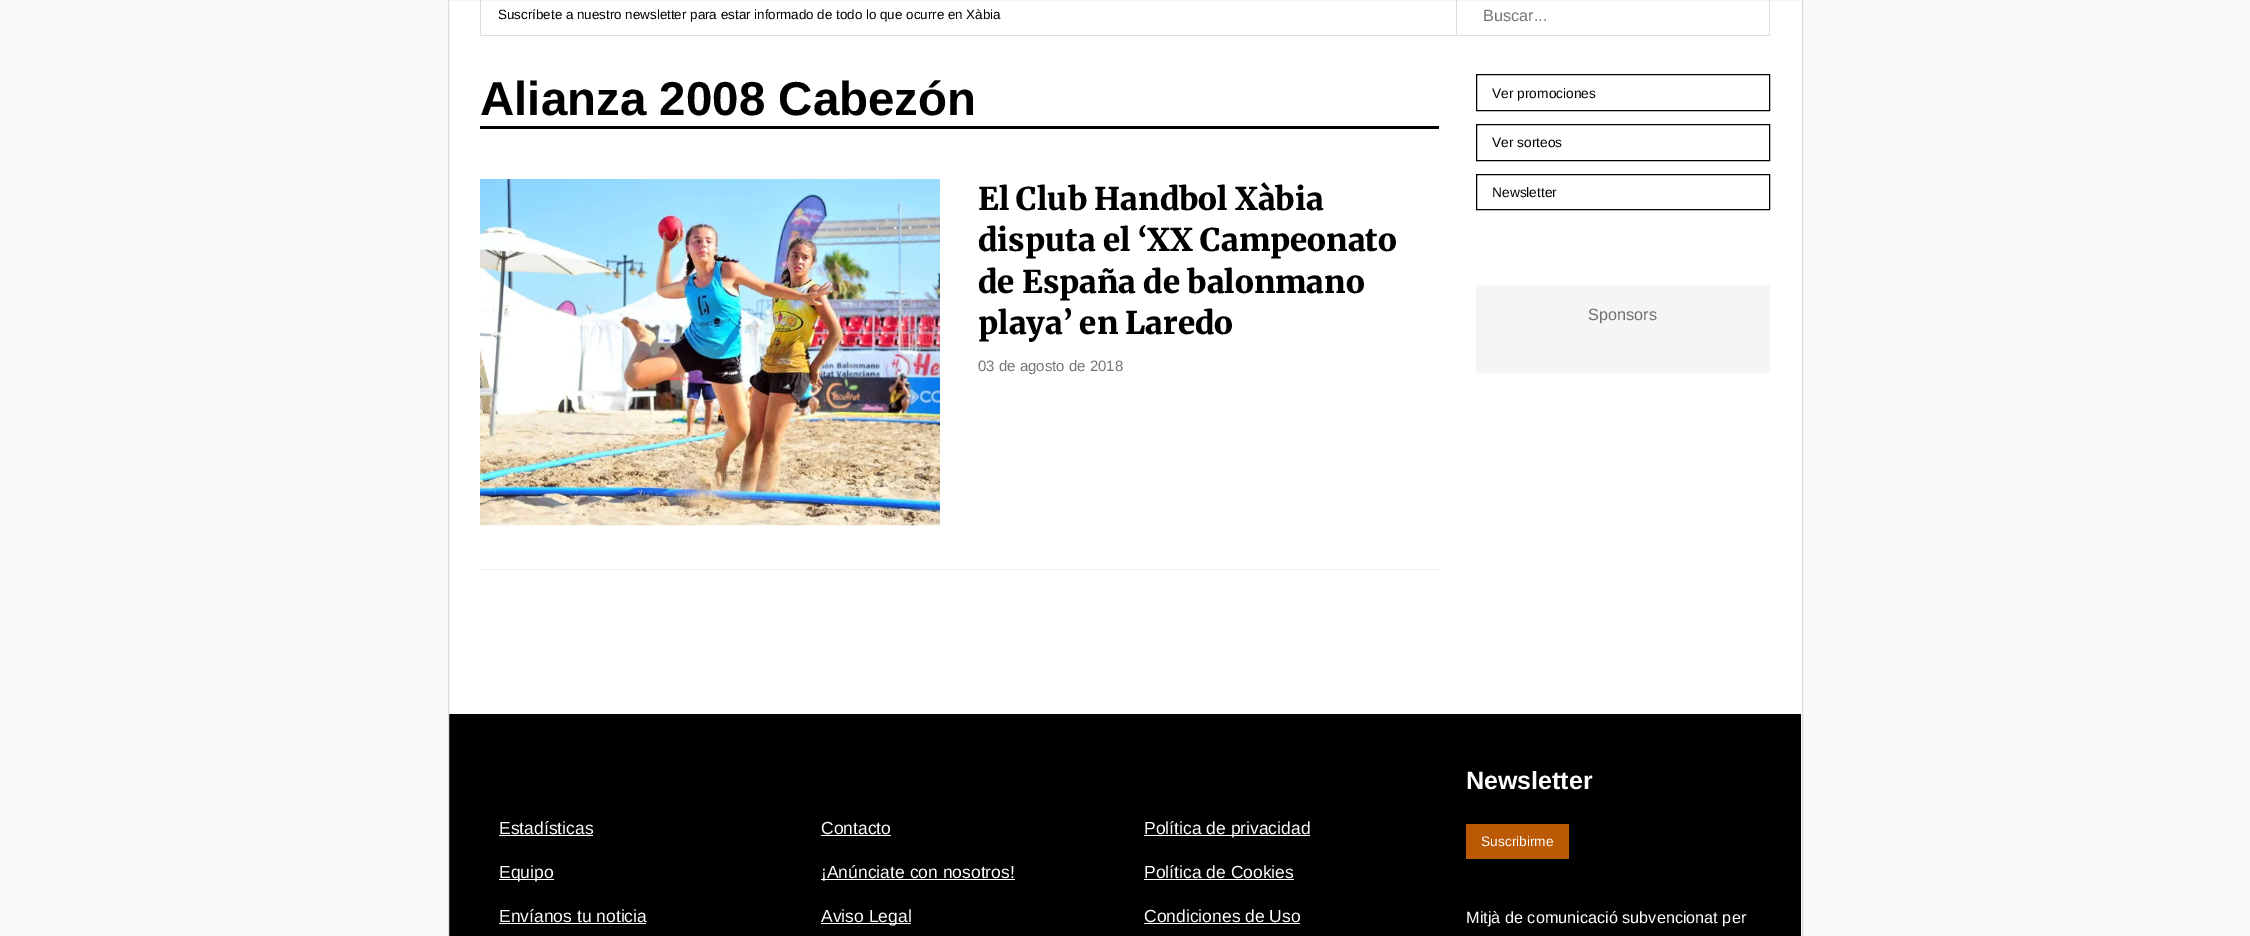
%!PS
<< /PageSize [2250 936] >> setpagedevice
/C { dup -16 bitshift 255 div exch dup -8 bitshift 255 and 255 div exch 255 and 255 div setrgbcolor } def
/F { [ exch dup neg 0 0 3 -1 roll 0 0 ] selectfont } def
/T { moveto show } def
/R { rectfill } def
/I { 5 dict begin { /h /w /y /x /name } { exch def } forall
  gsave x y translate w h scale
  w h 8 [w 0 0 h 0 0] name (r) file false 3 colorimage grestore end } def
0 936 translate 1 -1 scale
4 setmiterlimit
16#FAFAFA C
0 0 2250 936 R
16#FFFFFF C
449 0 1352 714 R
16#DDDDDD C
1769 0 1 36 R
480 35 1290 1 R
480 0 1 36 R
16#000000 C
449 714 1352 222 R
16#DDDDDD C
448.5 -.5 1354 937 rectstroke
/LiberationSans-Regular 13.4 F
16#000000 C
(Suscríbete a nuestro newsletter para estar informado de todo lo que ocurre en Xàbia) 498 19 T
16#DDDDDD C
1456 0 1 35 R
/LiberationSans-Regular 16.25 F
16#757575 C
(Buscar...) 1483 21 T
16#000000 C
480 126 959 3 R
/LiberationSans-Bold 47.5 F
(Alianza 2008 Cabezón) 480 115 T
16#EEEEEE C
480 569 959 1 R
(1.rgb) 480 179 460 347 I
/Merriweather-Black 31.25 F
16#000000 C
(El Club Handbol Xàbia) 978 210 T
(disputa el ‘XX Campeonato) 978 251 T
(de España de balonmano) 978 293 T
(playa’ en Laredo) 978 334 T
/LiberationSans-Regular 15 F
16#757575 C
(03 de agosto de 2018) 978 371 T
16#000000 C
1476.5 74.5 293 36 rectstroke
/LiberationSans-Regular 13.75 F
(Ver promociones) 1492 98 T
1476.5 124.5 293 36 rectstroke
(Ver sorteos) 1492 147 T
1476.5 174.5 293 35 rectstroke
(Newsletter) 1492 197 T
16#F5F5F5 C
1476 285 294 88 R
/LiberationSans-Regular 16.25 F
16#6F6F6F C
(Sponsors) 1588 320 T
/LiberationSans-Regular 17.5 F
16#FFFFFF C
(Estadísticas) 499 834 T
499 835 94 1 R
499 879 55 1 R
(Equipo) 499 878 T
(Envíanos tu noticia) 499 922 T
499 923 147 1 R
(Contacto) 821 834 T
821 835 70 1 R
821 879 194 1 R
(¡Anúnciate con nosotros!) 821 878 T
821 923 90 1 R
(Aviso Legal) 821 922 T
1144 835 166 1 R
(Política de privacidad) 1144 834 T
(Política de Cookies) 1144 878 T
1144 879 150 1 R
(Condiciones de Uso) 1144 922 T
1144 923 156 1 R
/LiberationSans-Bold 25 F
(Newsletter) 1466 789 T
16#BB5904 C
1466 824 103 35 R
/LiberationSans-Regular 13.75 F
16#FFFFFF C
(Suscribirme) 1481 846 T
/LiberationSans-Regular 16.25 F
(Mitjà de comunicació subvencionat per) 1466 923 T
showpage
